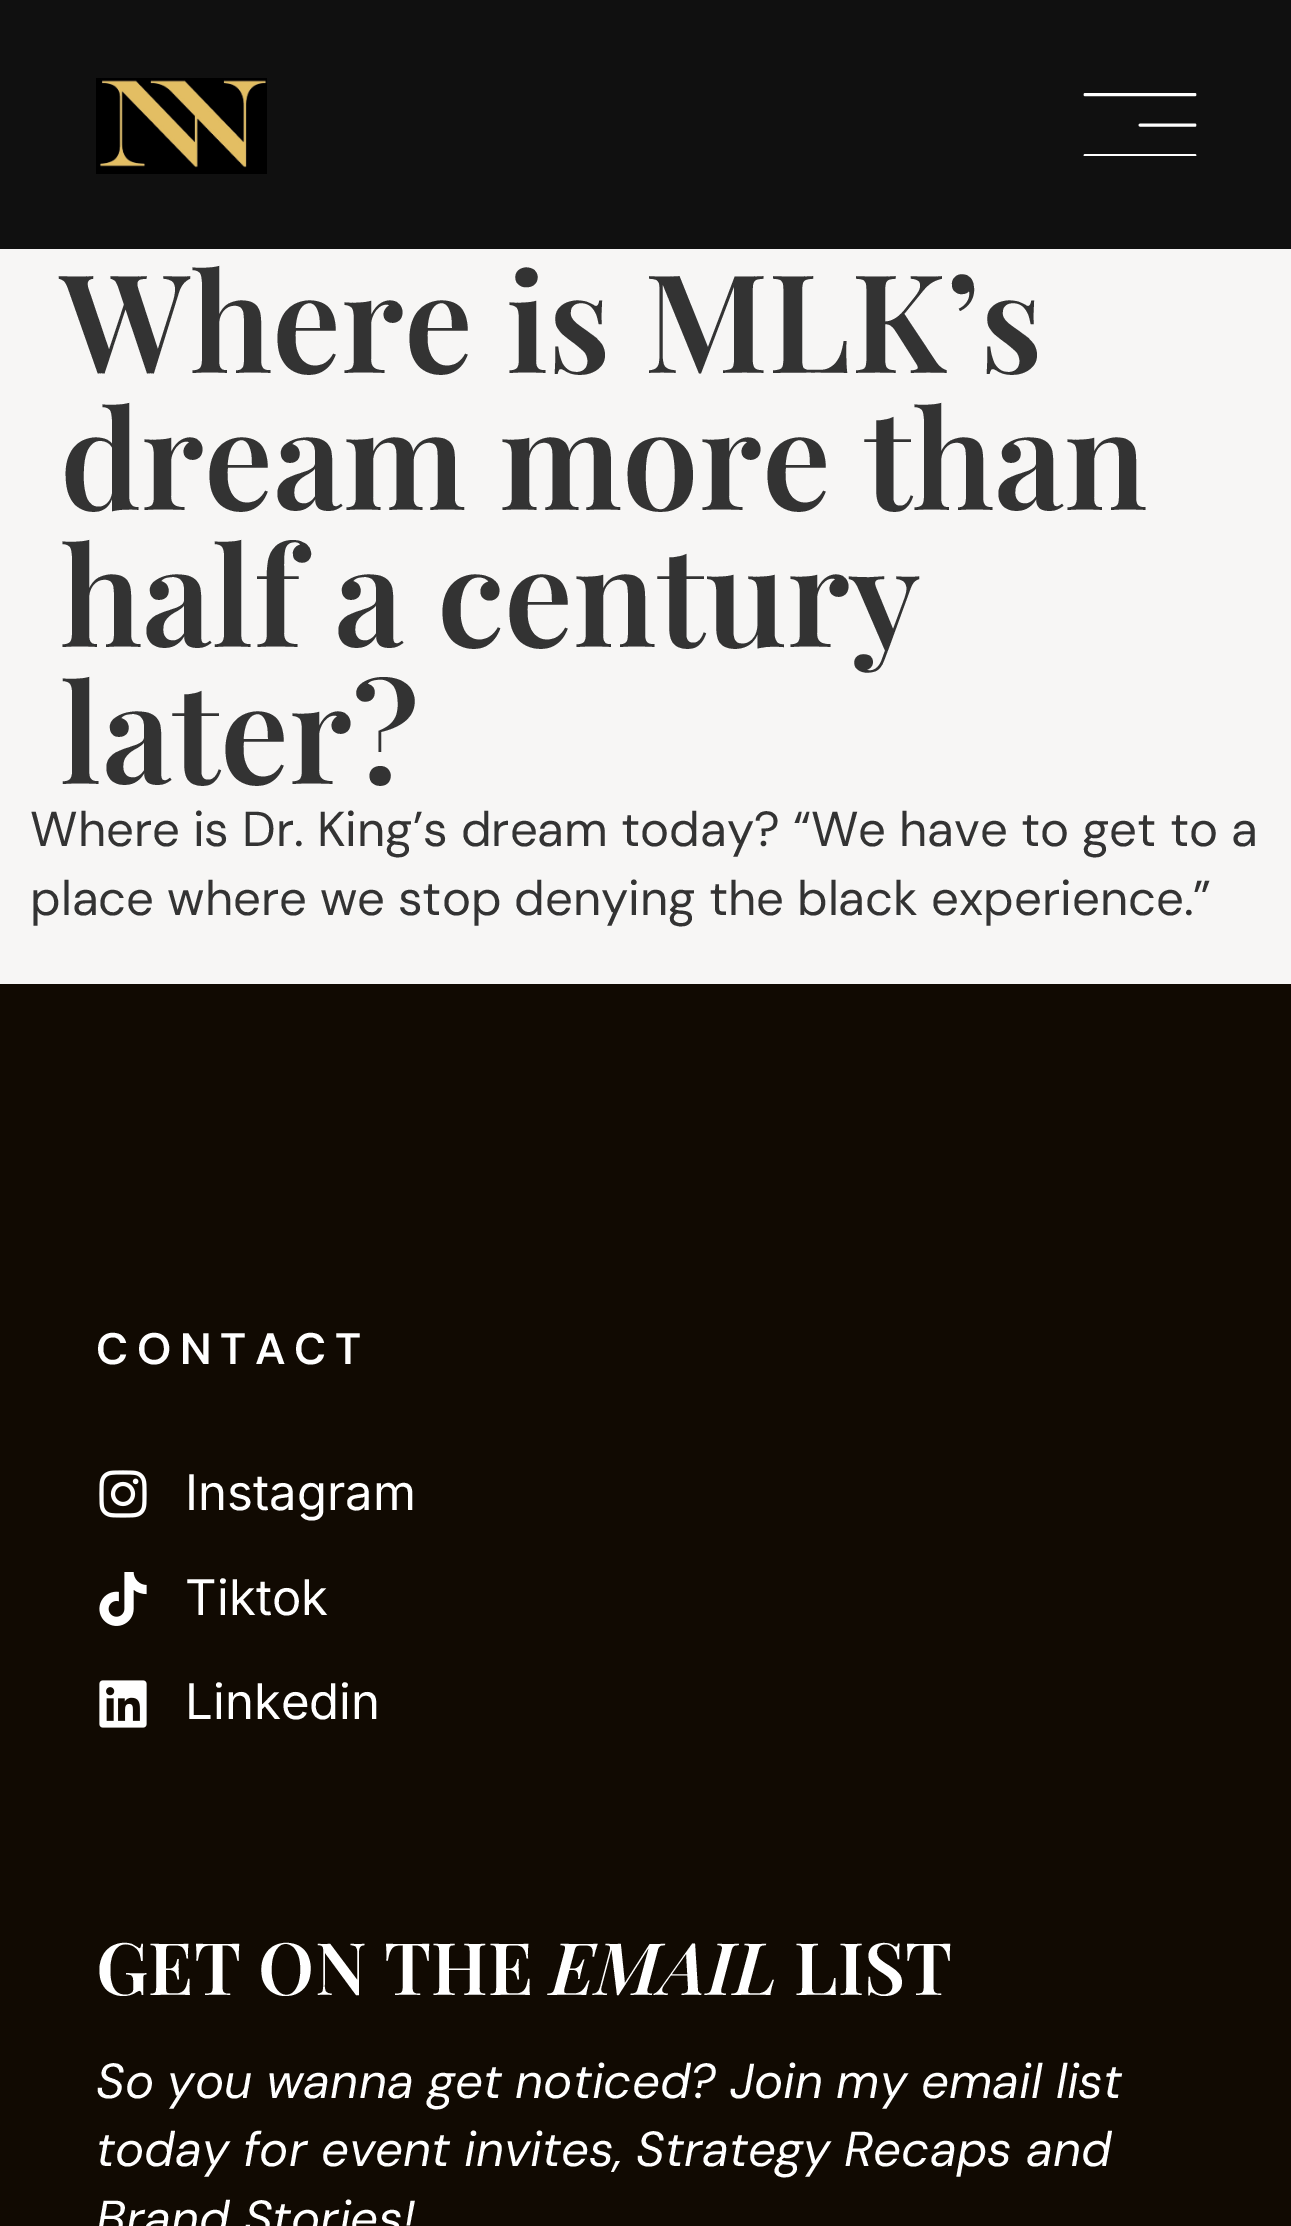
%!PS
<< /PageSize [1291 2226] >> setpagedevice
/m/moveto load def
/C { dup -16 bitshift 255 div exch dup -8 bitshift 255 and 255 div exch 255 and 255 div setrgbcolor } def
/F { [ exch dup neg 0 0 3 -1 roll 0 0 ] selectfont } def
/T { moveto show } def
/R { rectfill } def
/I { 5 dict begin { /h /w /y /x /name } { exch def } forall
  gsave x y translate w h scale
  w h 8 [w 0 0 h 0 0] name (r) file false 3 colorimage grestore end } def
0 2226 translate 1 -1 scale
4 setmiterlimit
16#F7F6F5 C
0 0 1291 2226 R
16#101010 C
0 0 1291 249 R
(1.rgb) 96 78 171 96 I
(2.rgb) 1083 93 114 63 I
/PlayfairDisplay-SemiBold 137 F
16#333333 C
(Where is MLK’s) 60 373 T
(dream more than) 60 510 T
(half a century) 60 647 T
(later?) 60 784 T
/DMSans-Regular 49.1 F
30 846 m -.1 0 32 (Where is Dr. King’s dream today? “We have to get to a) widthshow
30 915 m -.25 0 32 (place where we stop denying the black experience.”) widthshow
16#110A02 C
0 984 1291 1242 R
/DMSans-SemiBold 44 F
16#FFFFFF C
96 1364 m 8.75 0 (CONTACT) ashow
(3.rgb) 99 1470 48 48 I
/Inter-Regular 49.1 F
(Instagram) 185 1510 T
(4.rgb) 99 1572 48 54 I
(Tiktok) 185 1615 T
(5.rgb) 99 1680 48 48 I
(Linkedin) 185 1719 T
/PlayfairDisplay-SemiBold 72.5 F
(GET ON THE) 96 1995 T
/PlayfairDisplay-SemiBoldItalic 72.5 F
(EMAIL) 550 1995 T
/PlayfairDisplay-SemiBold 72.5 F
(LIST) 794 1995 T
/DMSans-Italic 49.1 F
96 2098 m -.25 0 32 (So you wanna get noticed? Join my email list) widthshow
96 2166 m -.25 0 32 (today for event invites, Strategy Recaps and) widthshow
(Brand Stories!) 96 2235 T
showpage
